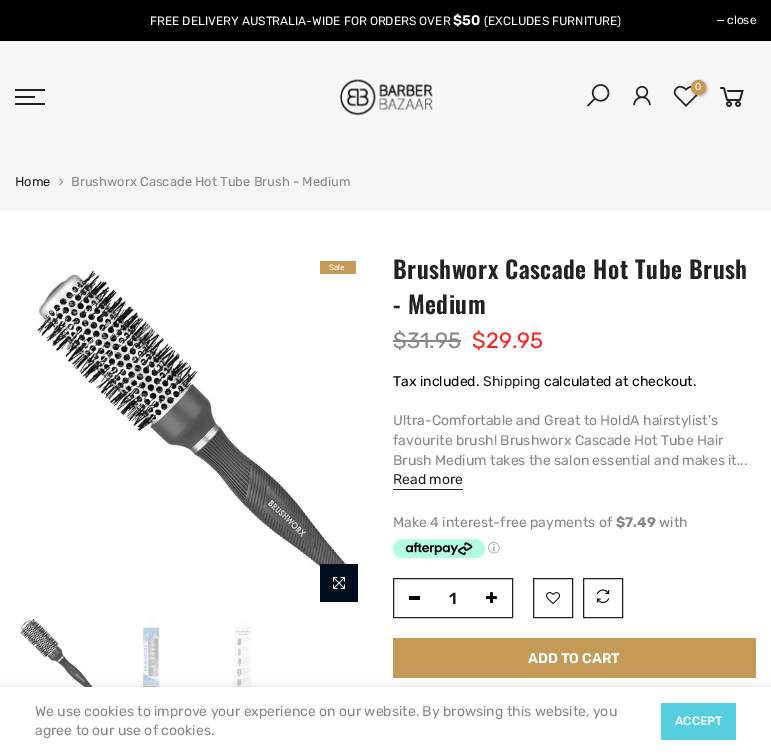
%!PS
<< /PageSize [771 756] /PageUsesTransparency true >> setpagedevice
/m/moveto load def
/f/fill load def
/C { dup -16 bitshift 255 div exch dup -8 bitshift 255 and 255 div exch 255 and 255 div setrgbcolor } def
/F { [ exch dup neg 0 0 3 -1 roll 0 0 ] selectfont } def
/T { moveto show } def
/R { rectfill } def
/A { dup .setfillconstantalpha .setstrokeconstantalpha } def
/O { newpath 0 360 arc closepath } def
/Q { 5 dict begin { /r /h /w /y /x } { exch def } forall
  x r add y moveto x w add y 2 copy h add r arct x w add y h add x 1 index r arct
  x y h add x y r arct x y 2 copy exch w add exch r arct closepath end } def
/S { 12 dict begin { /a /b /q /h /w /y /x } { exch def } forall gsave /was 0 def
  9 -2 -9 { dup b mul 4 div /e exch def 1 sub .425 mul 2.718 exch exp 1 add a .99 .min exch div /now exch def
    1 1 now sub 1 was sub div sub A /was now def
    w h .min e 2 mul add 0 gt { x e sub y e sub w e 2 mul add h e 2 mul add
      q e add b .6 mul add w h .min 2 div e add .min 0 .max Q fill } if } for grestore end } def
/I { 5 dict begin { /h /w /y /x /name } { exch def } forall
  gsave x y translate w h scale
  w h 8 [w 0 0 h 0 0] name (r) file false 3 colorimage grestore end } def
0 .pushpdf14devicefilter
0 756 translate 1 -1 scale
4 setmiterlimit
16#FFFFFF C
0 0 771 756 R
16#000000 C
0 0 771 41 R
/Rubik-Regular 12 F
16#FFFFFF C
(FREE DELIVERY AUSTRALIA-WIDE FOR ORDERS OVER) 150 25 T
/Rubik-SemiBold 14 F
($50) 453 25 T
/Rubik-Regular 12 F
(\(EXCLUDES FURNITURE\)) 484 25 T
717 20 7 1 R
(close) 727 24 T
16#F7F7F7 C
0 41 771 112 R
(1.rgb) 339 79 94 37 I
(2.rgb) 587 84 23 23 I
(3.rgb) 633 85 18 21 I
(4.rgb) 673 85 25 22 I
16#000000 C
692 81 15 15 7.5 1.5 .3 S
16#C59A57 C
698.5 87.5 7.5 O f
/Rubik-Regular 10 F
16#FFFFFF C
(0) 695 90 T
(5.rgb) 720 87 24 20 I
16#222222 C
15 89 30 2 R
15 96 20 2 R
15 103 30 2 R
16#F6F6F8 C
0 153 771 58 R
/Rubik-Regular 13 F
16#222222 C
(Home) 15 186 T
(6.rgb) 59 178 5 8 I
16#878787 C
(Brushworx Cascade Hot Tube Brush - Medium) 71 186 T
(7.rgb) 36 270 315 319 I
16#C59A57 C
320 261 36 13 R
/Rubik-Regular 8 F
16#FFFFFF C
(Sale) 329 270 T
16#000D1D C
320 564 38 38 R
(8.rgb) 333 577 12 12 I
(9.rgb) 20 619 76 68 I
(10.rgb) 143 621 17 66 I
(11.rgb) 234 621 18 66 I
/Oswald-SemiBold 24 F
16#222222 C
393 279 m .5 0 (Brushworx Cascade Hot Tube Brush) ashow
393 314 m .5 0 (- Medium) ashow
/Rubik-Regular 22 F
16#878787 C
($31.95) 393 348 T
393 340 68 2 R
16#FF2020 C
($29.95) 472 348 T
/Rubik-Regular 14 F
16#000000 C
(Tax included.) 393 386 T
16#222222 C
(Shipping) 483 386 T
16#000000 C
(calculated at checkout.) 544 386 T
16#878787 C
(Ultra-Comfortable and Great to HoldA hairstylist’s) 393 425 T
(favourite brush! Brushworx Cascade Hot Tube Hair) 393 445 T
(Brush Medium takes the salon essential and makes it...) 393 465 T
16#222222 C
(Read more) 393 484 T
393 489 70 1 R
16#878787 C
(Make 4 interest-free payments of) 393 527 T
/Rubik-Bold 14 F
($7.49) 616 527 T
/Rubik-Regular 14 F
(with) 659 527 T
(12.rgb) 393 539 92 20 I
/WenQuanYiZenHei-Medium 12 F
(ⓘ) 488 552 T
16#222222 C
393.5 578.5 119 39 rectstroke
16#000000 C
409 596 11 4 R
(13.rgb) 486 592 11 12 I
/Rubik-SemiBold 16 F
16#222222 C
(1) 449 604 T
533.5 578.5 39 39 rectstroke
(14.rgb) 546 592 14 12 I
583.5 578.5 39 39 rectstroke
(15.rgb) 596 589 14 14 I
16#C59A57 C
393 638 363 40 R
/Rubik-SemiBold 14 F
16#FFFFFF C
(ADD TO CART) 528 663 T
16#000000 C
0 687 771 69 0 4.5 .14 S
16#FFFFFF C
0 687 771 69 R
/Rubik-Regular 14 F
16#878787 C
(We use cookies to improve your experience on our website. By browsing this website, you) 35 716 T
(agree to our use of cookies.) 35 735 T
16#56CFE1 C
661 703 75 37 R
/Rubik-Medium 12 F
16#FFFFFF C
(ACCEPT) 675 725 T
.poppdf14devicefilter showpage
